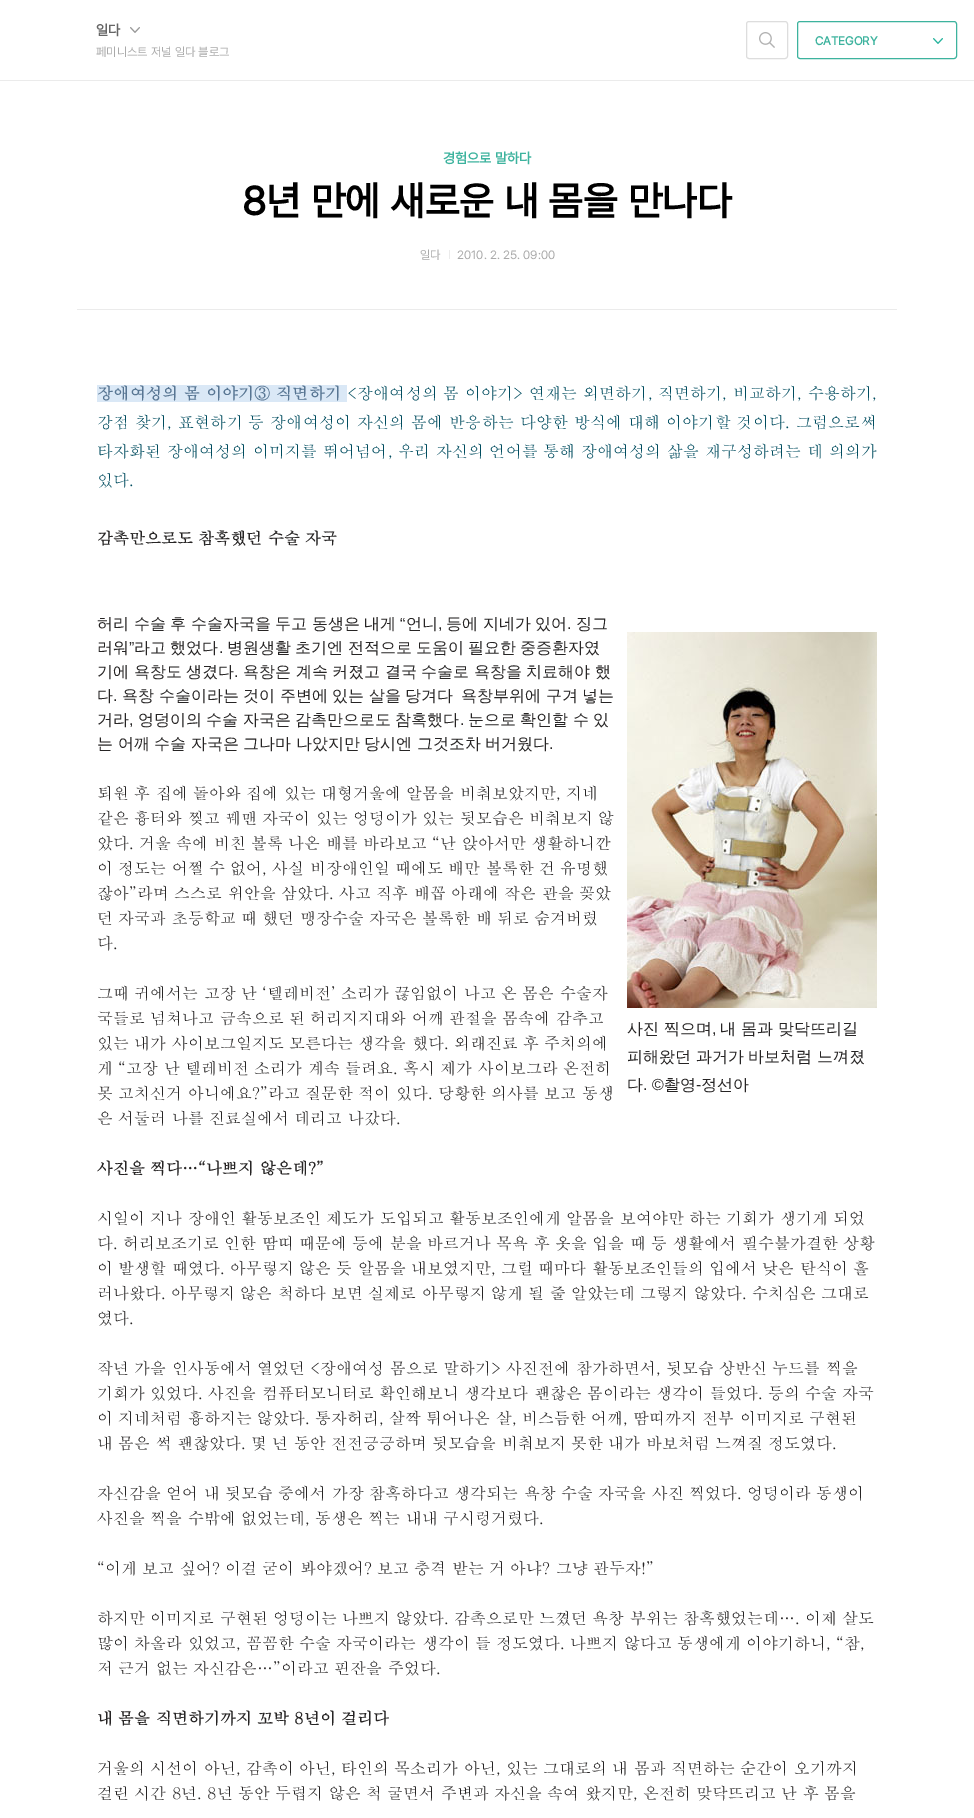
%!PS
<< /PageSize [974 1818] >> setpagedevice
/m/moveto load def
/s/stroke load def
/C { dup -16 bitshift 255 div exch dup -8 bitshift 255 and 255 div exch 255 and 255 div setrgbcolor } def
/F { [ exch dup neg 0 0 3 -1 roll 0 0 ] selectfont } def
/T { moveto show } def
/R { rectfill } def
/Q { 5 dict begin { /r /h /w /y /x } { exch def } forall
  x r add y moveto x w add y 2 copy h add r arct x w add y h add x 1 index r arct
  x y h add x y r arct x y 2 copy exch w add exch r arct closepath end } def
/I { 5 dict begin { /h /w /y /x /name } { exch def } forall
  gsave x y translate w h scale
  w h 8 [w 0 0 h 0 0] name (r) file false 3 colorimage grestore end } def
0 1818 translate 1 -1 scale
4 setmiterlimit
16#FFFFFF C
0 0 974 1818 R
16#EBEBEB C
0 80 974 1 R
/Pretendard-Bold 14 F
16#666666 C
(일다) 96 35 T
(1.rgb) 130 27 10 6 I
/Pretendard-Regular 12 F
16#AAAAAA C
(페미니스트 저널 일다 블로그) 96 56 T
16#DDDDDD C
746.5 21.5 41 37 2.5 Q s
(2.rgb) 759 32 16 16 I
16#3DB39E C
797.5 21.5 159 37 2.5 Q s
/Pretendard-Bold 12 F
(CATEGORY) 815 45 T
(3.rgb) 933 38 10 6 I
16#EBEBEB C
77 309 820 1 R
/Pretendard-Bold 14 F
16#3DB39E C
(경험으로 말하다) 443 163 T
/Pretendard-Bold 40 F
16#000000 C
(8년 만에 새로운 내 몸을 만나다) 242 215 T
/Pretendard-Regular 12 F
16#AAAAAA C
(일다) 420 259 T
16#EBEBEB C
449 250 1 9 R
16#AAAAAA C
(2010. 2. 25. 09:00) 457 259 T
16#DAE8F6 C
97 385 250 17 R
/Batang-Bold 16 F
16#587693 C
97 399 m .25 0 (장애여성의 몸 이야기③ 직면하기) ashow
/Batang-Regular 16 F
16#004C5F C
347 399 m .15 0 (<장애여성의 몸 이야기> 연재는 외면하기, 직면하기, 비교하기, 수용하기,) ashow
97 428 m .23 0 (강점 찾기, 표현하기 등 장애여성이 자신의 몸에 반응하는 다양한 방식에 대해 이야기할 것이다. 그럼으로써) ashow
97 457 m .13 0 (타자화된 장애여성의 이미지를 뛰어넘어, 우리 자신의 언어를 통해 장애여성의 삶을 재구성하려는 데 의의가) ashow
(있다.) 97 486 T
/Batang-Bold 16 F
16#262424 C
(감촉만으로도 참혹했던 수술 자국) 97 544 T
/WenQuanYiZenHei-Medium 16 F
97 629 m -.25 0 32 (허리 수술 후 수술자국을 두고 동생은 내게) widthshow
/LiberationSans-Regular 16 F
(“) 400 629 T
/WenQuanYiZenHei-Medium 16 F
(언니) 406 629 T
446 629 m -.25 0 32 (등에 지네가 있어) widthshow
(징그) 576 629 T
/LiberationSans-Regular 16 F
(,) 438 629 T
(.) 567 629 T
/WenQuanYiZenHei-Medium 16 F
(러워) 97 653 T
/LiberationSans-Regular 16 F
(”) 129 653 T
/WenQuanYiZenHei-Medium 16 F
134 653 m -.5 0 32 (라고 했었다) widthshow
227 653 m -.5 0 32 (병원생활 초기엔 전적으로 도움이 필요한 중증환자였) widthshow
/LiberationSans-Regular 16 F
(.) 219 653 T
/WenQuanYiZenHei-Medium 16 F
97 677 m -.25 0 32 (기에 욕창도 생겼다) widthshow
/LiberationSans-Regular 16 F
(.) 234 677 T
/WenQuanYiZenHei-Medium 16 F
243 677 m -.25 0 32 (욕창은 계속 커졌고 결국 수술로 욕창을 치료해야 했) widthshow
(다) 97 701 T
/LiberationSans-Regular 16 F
(.) 113 701 T
/WenQuanYiZenHei-Medium 16 F
122 701 m -.25 0 32 (욕창 수술이라는 것이 주변에 있는 살을 당겨다) widthshow
461 701 m -.25 0 32 (욕창부위에 구겨 넣는) widthshow
(거라) 97 725 T
/LiberationSans-Regular 16 F
(,) 129 725 T
/WenQuanYiZenHei-Medium 16 F
138 725 m -.5 0 32 (엉덩이의 수술 자국은 감촉만으로도 참혹했다) widthshow
/LiberationSans-Regular 16 F
(.) 460 725 T
/WenQuanYiZenHei-Medium 16 F
468 725 m -.5 0 32 (눈으로 확인할 수 있) widthshow
97 749 m -.25 0 32 (는 어깨 수술 자국은 그나마 나았지만 당시엔 그것조차 버거웠다) widthshow
/LiberationSans-Regular 16 F
(.) 549 749 T
/Batang-Regular 16 F
(퇴원 후 집에 돌아와 집에 있는 대형거울에 알몸을 비춰보았지만, 지네) 97 799 T
(같은 흉터와 찢고 꿰맨 자국이 있는 엉덩이가 있는 뒷모습은 비춰보지 않) 97 824 T
(았다. 거울 속에 비친 볼록 나온 배를 바라보고 “난 앉아서만 생활하니깐) 97 849 T
(이 정도는 어쩔 수 없어, 사실 비장애인일 때에도 배만 볼록한 건 유명했) 97 874 T
(잖아”라며 스스로 위안을 삼았다. 사고 직후 배꼽 아래에 작은 관을 꽂았) 97 899 T
(던 자국과 초등학교 때 했던 맹장수술 자국은 볼록한 배 뒤로 숨겨버렸) 97 924 T
(다.) 97 949 T
(그때 귀에서는 고장 난 ‘텔레비전’ 소리가 끊임없이 나고 온 몸은 수술자) 97 999 T
(국들로 넘쳐나고 금속으로 된 허리지지대와 어깨 관절을 몸속에 감추고) 97 1024 T
(있는 내가 사이보그일지도 모른다는 생각을 했다. 외래진료 후 주치의에) 97 1049 T
(4.rgb) 627 632 250 376 I
/WenQuanYiZenHei-Medium 16 F
(사진 찍으며) 627 1034 T
/LiberationSans-Regular 16 F
(,) 712 1034 T
/WenQuanYiZenHei-Medium 16 F
(내 몸과 맞닥뜨리길) 720 1034 T
627 1062 m -.25 0 32 (피해왔던 과거가 바보처럼 느껴졌) widthshow
(다) 627 1090 T
/LiberationSans-Regular 16 F
(. ©) 643 1090 T
/WenQuanYiZenHei-Medium 16 F
(촬영) 664 1090 T
/LiberationSans-Regular 16 F
(-) 696 1090 T
/WenQuanYiZenHei-Medium 16 F
(정선아) 701 1090 T
/Batang-Regular 16 F
(게 “고장 난 텔레비전 소리가 계속 들려요. 혹시 제가 사이보그라 온전히) 97 1074 T
(못 고치신거 아니에요?”라고 질문한 적이 있다. 당황한 의사를 보고 동생) 97 1099 T
(은 서둘러 나를 진료실에서 데리고 나갔다.) 97 1124 T
/Batang-Bold 16 F
(사진을 찍다…“나쁘지 않은데?”) 97 1174 T
/Batang-Regular 16 F
(시일이 지나 장애인 활동보조인 제도가 도입되고 활동보조인에게 알몸을 보여야만 하는 기회가 생기게 되었) 97 1224 T
(다. 허리보조기로 인한 땀띠 때문에 등에 분을 바르거나 목욕 후 옷을 입을 때 등 생활에서 필수불가결한 상황) 97 1249 T
(이 발생할 때였다. 아무렇지 않은 듯 알몸을 내보였지만, 그럴 때마다 활동보조인들의 입에서 낮은 탄식이 흘) 97 1274 T
(러나왔다. 아무렇지 않은 척하다 보면 실제로 아무렇지 않게 될 줄 알았는데 그렇지 않았다. 수치심은 그대로) 97 1299 T
(였다.) 97 1324 T
(작년 가을 인사동에서 열었던 <장애여성 몸으로 말하기> 사진전에 참가하면서, 뒷모습 상반신 누드를 찍을) 97 1374 T
(기회가 있었다. 사진을 컴퓨터모니터로 확인해보니 생각보다 괜찮은 몸이라는 생각이 들었다. 등의 수술 자국) 97 1399 T
(이 지네처럼 흉하지는 않았다. 통자허리, 살짝 튀어나온 살, 비스듬한 어깨, 땀띠까지 전부 이미지로 구현된) 97 1424 T
(내 몸은 썩 괜찮았다. 몇 년 동안 전전긍긍하며 뒷모습을 비춰보지 못한 내가 바보처럼 느껴질 정도였다.) 97 1449 T
(자신감을 얻어 내 뒷모습 중에서 가장 참혹하다고 생각되는 욕창 수술 자국을 사진 찍었다. 엉덩이라 동생이) 97 1499 T
(사진을 찍을 수밖에 없었는데, 동생은 찍는 내내 구시렁거렸다.) 97 1524 T
(“이게 보고 싶어? 이걸 굳이 봐야겠어? 보고 충격 받는 거 아냐? 그냥 관두자!”) 97 1574 T
(하지만 이미지로 구현된 엉덩이는 나쁘지 않았다. 감촉으로만 느꼈던 욕창 부위는 참혹했었는데…. 이제 살도) 97 1624 T
(많이 차올라 있었고, 꼼꼼한 수술 자국이라는 생각이 들 정도였다. 나쁘지 않다고 동생에게 이야기하니, “참,) 97 1649 T
(저 근거 없는 자신감은…”이라고 핀잔을 주었다.) 97 1674 T
/Batang-Bold 16 F
(내 몸을 직면하기까지 꼬박 8년이 걸리다) 97 1724 T
/Batang-Regular 16 F
(거울의 시선이 아닌, 감촉이 아닌, 타인의 목소리가 아닌, 있는 그대로의 내 몸과 직면하는 순간이 오기까지) 97 1774 T
(걸린 시간 8년. 8년 동안 두렵지 않은 척 굴면서 주변과 자신을 속여 왔지만, 온전히 맞닥뜨리고 난 후 몸을) 97 1799 T
showpage
